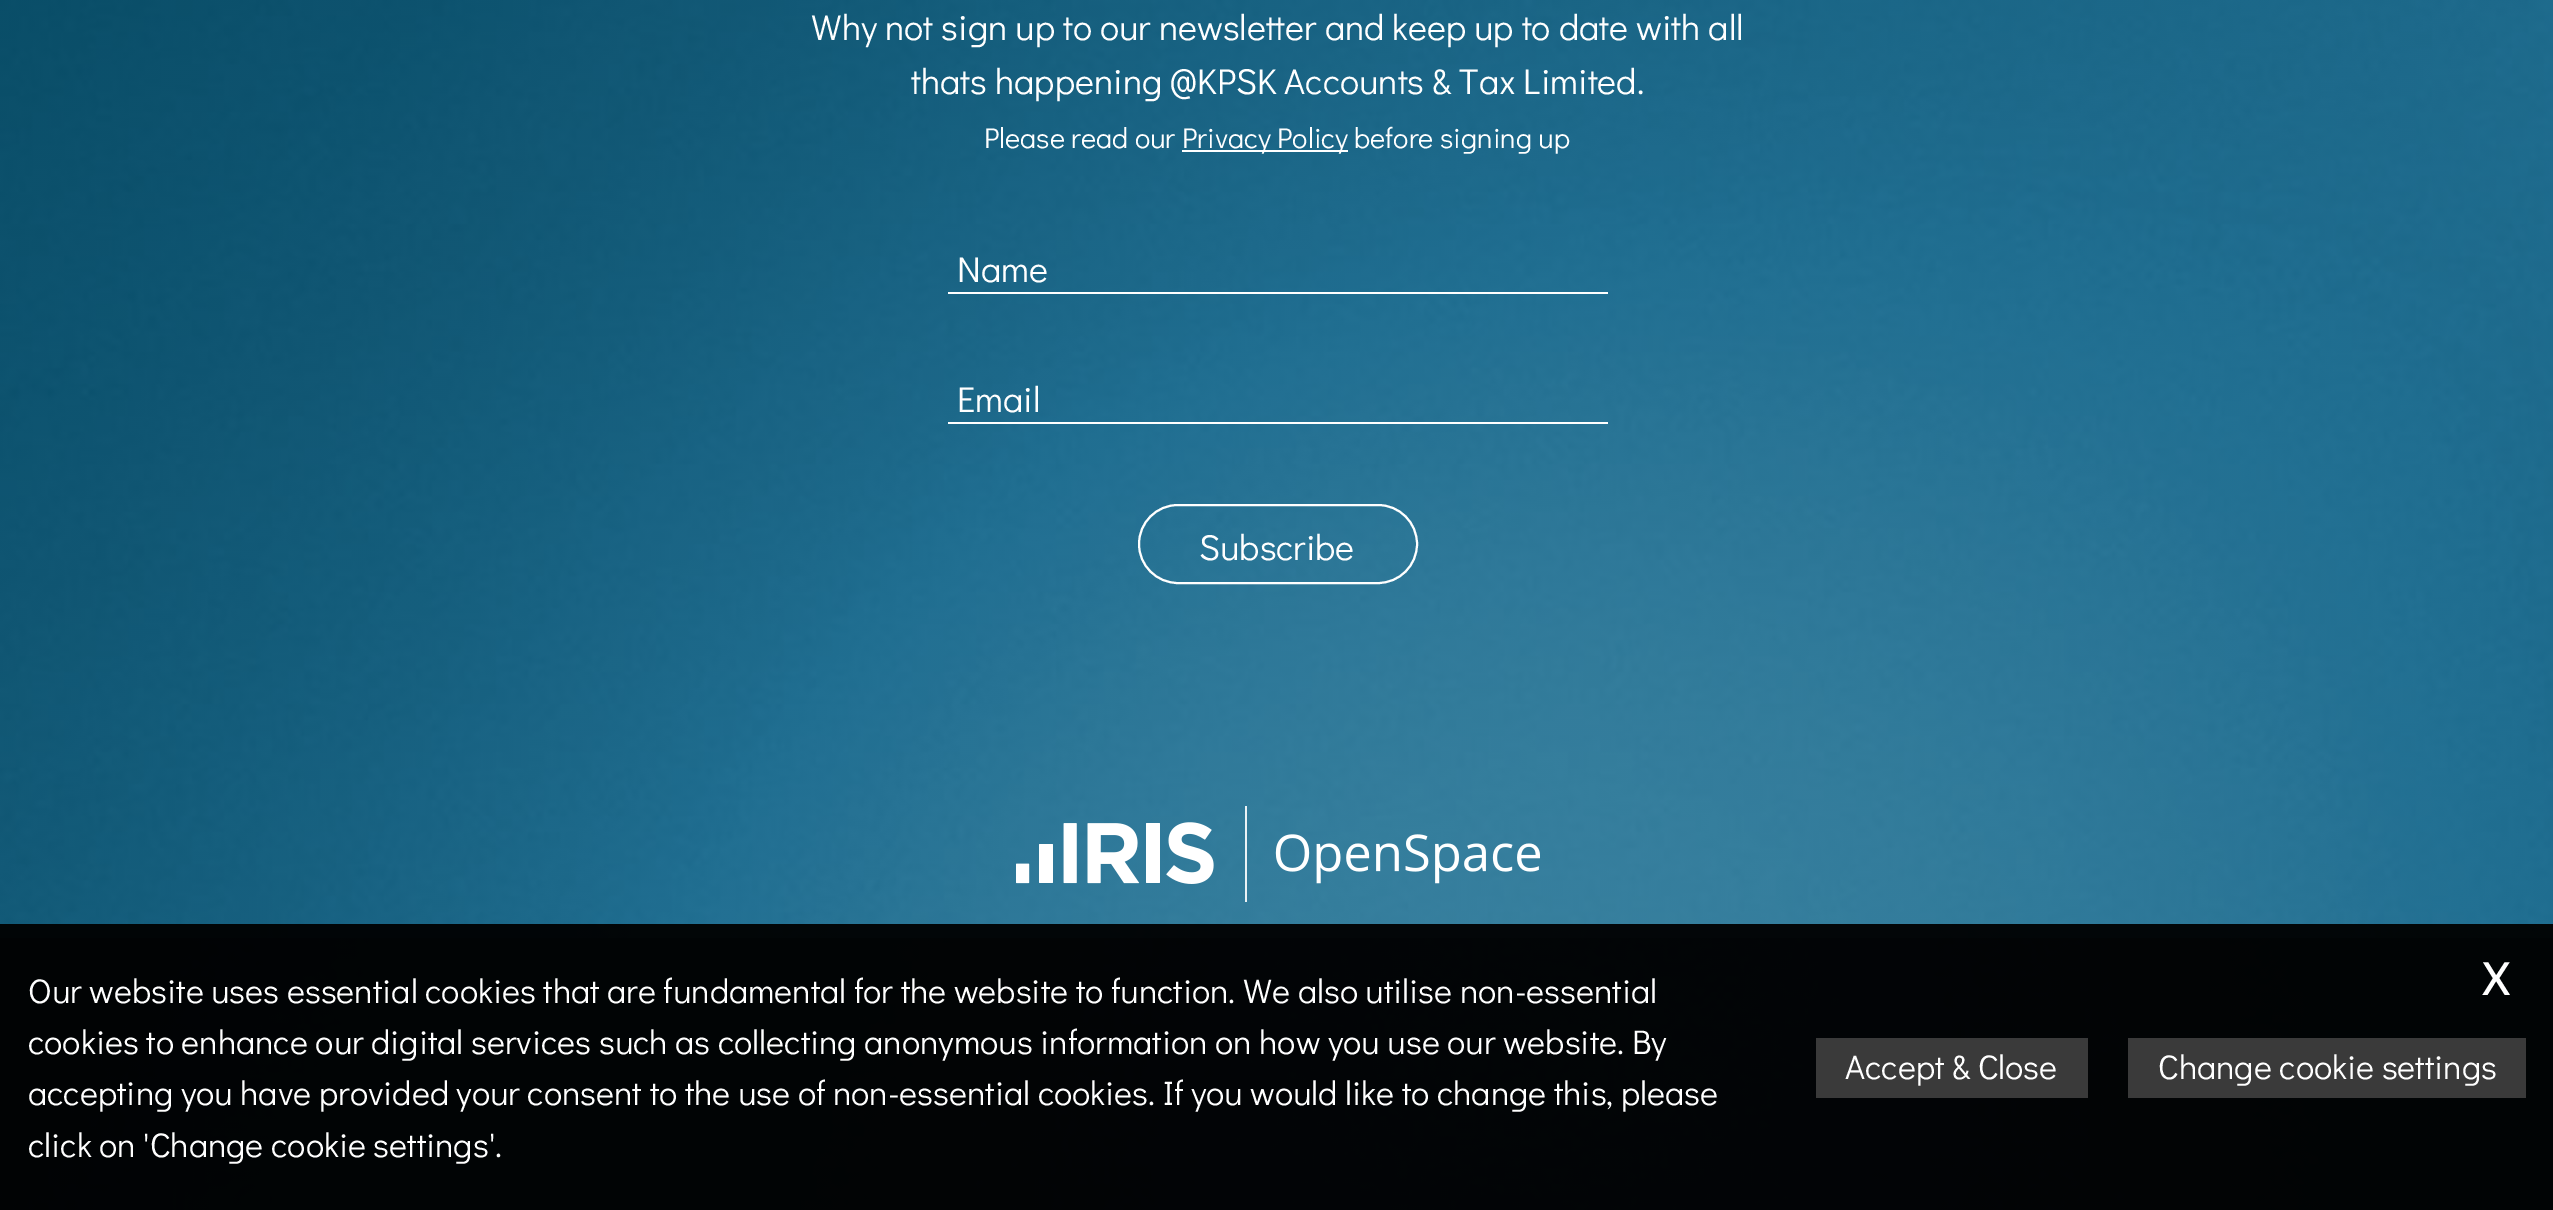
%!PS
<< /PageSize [2553 1210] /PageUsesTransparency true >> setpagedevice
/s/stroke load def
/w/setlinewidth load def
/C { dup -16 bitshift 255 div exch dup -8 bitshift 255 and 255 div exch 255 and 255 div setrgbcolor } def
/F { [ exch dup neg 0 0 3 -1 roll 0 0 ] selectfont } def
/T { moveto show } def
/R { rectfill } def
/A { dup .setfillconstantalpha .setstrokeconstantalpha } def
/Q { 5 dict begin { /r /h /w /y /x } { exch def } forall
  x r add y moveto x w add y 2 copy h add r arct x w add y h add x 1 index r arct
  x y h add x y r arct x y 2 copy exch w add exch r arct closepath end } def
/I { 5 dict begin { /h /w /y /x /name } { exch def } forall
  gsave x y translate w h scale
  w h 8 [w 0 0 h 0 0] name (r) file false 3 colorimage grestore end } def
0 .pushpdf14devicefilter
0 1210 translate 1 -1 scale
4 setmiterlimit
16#FFFFFF C
0 0 2553 1210 R
(1.rgb) 0 0 2553 1210 I
/DidactGothic-Regular 36 F
(Why not sign up to our newsletter and keep up to date with all) 811 40 T
(thats happening @KPSK Accounts & Tax Limited.) 911 94 T
/DidactGothic-Regular 28.75 F
(Please read our) 984 148 T
1182 150 166 2 R
(Privacy Policy before signing up) 1182 148 T
948 292 660 2 R
/DidactGothic-Regular 36 F
(Name) 957 282 T
948 422 660 2 R
(Email) 957 412 T
2 w
1139 505 278 78 39 Q s
(Subscribe) 1199 560 T
(2.rgb) 1016 806 524 96 I
0.3 A
16#000000 C
0 938 2553 272 R
0.95 A
0 924 2553 286 R
/DidactGothic-Regular 34.2 F
1 A
16#FFFFFF C
(Our website uses essential cookies that are fundamental for the website to function. We also utilise non-essential) 28 1003 T
(cookies to enhance our digital services such as collecting anonymous information on how you use our website. By) 28 1054 T
(accepting you have provided your consent to the use of non-essential cookies. If you would like to change this, please) 28 1105 T
(click on 'Change cookie settings'.) 28 1157 T
16#3A3A3A C
1816 1038 272 60 R
16#FFFFFF C
(Accept & Close) 1845 1079 T
/DidactGothic-Regular 70 F
(x) 2480 995 T
16#3A3A3A C
2128 1038 398 60 R
/DidactGothic-Regular 34.2 F
16#FFFFFF C
(Change cookie settings) 2158 1079 T
.poppdf14devicefilter showpage
